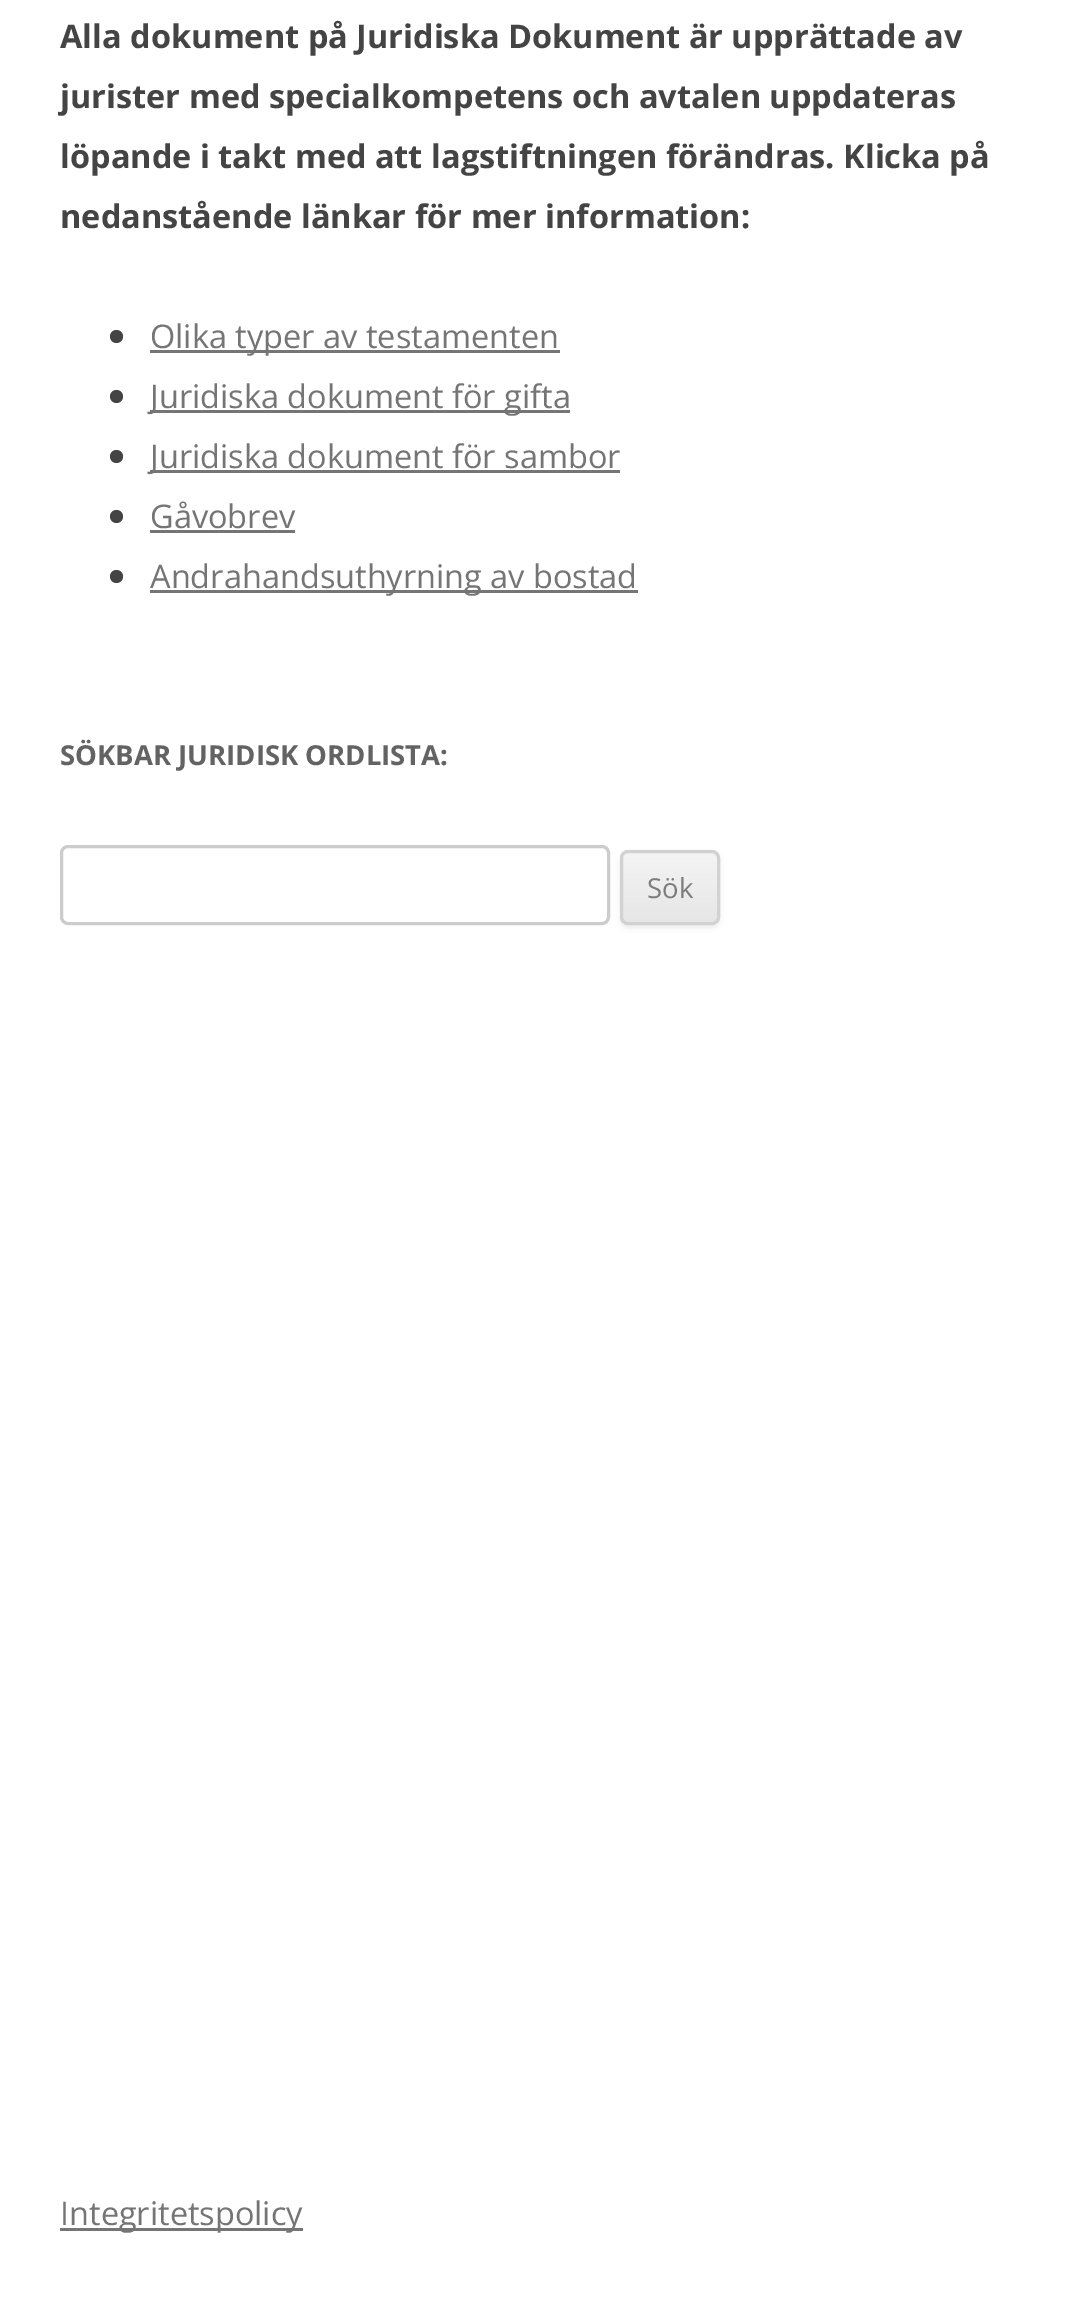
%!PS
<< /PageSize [1078 2299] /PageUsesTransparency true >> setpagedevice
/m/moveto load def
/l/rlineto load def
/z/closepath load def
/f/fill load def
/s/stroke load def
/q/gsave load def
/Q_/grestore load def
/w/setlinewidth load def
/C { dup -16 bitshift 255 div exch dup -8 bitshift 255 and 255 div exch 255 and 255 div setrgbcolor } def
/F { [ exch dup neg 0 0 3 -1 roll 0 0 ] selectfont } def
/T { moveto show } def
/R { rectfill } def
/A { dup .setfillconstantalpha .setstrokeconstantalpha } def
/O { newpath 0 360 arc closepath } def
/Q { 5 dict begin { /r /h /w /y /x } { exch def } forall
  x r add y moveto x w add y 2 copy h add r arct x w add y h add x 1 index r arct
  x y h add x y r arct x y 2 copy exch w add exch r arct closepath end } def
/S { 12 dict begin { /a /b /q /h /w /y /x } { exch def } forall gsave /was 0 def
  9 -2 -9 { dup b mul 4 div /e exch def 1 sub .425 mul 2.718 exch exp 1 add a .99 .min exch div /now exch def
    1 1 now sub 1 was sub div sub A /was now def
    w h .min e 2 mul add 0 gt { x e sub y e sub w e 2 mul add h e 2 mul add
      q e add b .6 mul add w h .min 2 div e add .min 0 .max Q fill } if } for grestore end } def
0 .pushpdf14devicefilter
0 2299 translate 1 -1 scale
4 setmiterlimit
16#FFFFFF C
0 0 1078 2299 R
/OpenSans-Bold 32.5 F
16#444444 C
(Alla dokument på Juridiska Dokument är upprättade av) 60 48 T
(jurister med specialkompetens och avtalen uppdateras) 60 108 T
(löpande i takt med att lagstiftningen förändras. Klicka på) 60 168 T
(nedanstående länkar för mer information:) 60 228 T
116.5 336.5 6.5 O f
16#757575 C
150 350 410 3 R
/OpenSans-Regular 32.5 F
(Olika typer av testamenten) 150 348 T
16#444444 C
116.5 396.5 6.5 O f
16#757575 C
150 410 420 3 R
(Juridiska dokument för gifta) 150 408 T
16#444444 C
116.5 456.5 6.5 O f
16#757575 C
150 470 470 3 R
(Juridiska dokument för sambor) 150 468 T
16#444444 C
116.5 516.5 6.5 O f
16#757575 C
(Gåvobrev) 150 528 T
150 530 145 3 R
16#444444 C
116.5 576.5 6.5 O f
16#757575 C
150 590 488 3 R
(Andrahandsuthyrning av bostad) 150 588 T
/OpenSans-Bold 27.5 F
16#636363 C
(SÖKBAR JURIDISK ORDLISTA:) 60 765 T
16#CCCCCC C
3 w
61.5 846.5 547 77 6.5 Q s
16#404040 C
620 853 100 75 8 2.5 .1 S
q
620 850 100 75 8 Q clip newpath
q 620 853 m 100 0 l 0 70 l -100 0 l z clip newpath
<< /ShadingType 2 /ColorSpace /DeviceRGB /Coords [670 853 670 923] /Extend [true true] /Function << /FunctionType 2 /Domain [0 1] /C0 [.957 .957 .957] /C1 [.902 .902 .902] /N 1 >> >> shfill Q_
Q_
16#D2D2D2 C
621.5 851.5 97 72 6.5 Q s
/OpenSans-Regular 27.5 F
16#7C7C7C C
(Sök) 647 898 T
16#757575 C
60 2228 243 3 R
/OpenSans-Regular 32.5 F
(Integritetspolicy) 60 2225 T
.poppdf14devicefilter showpage
